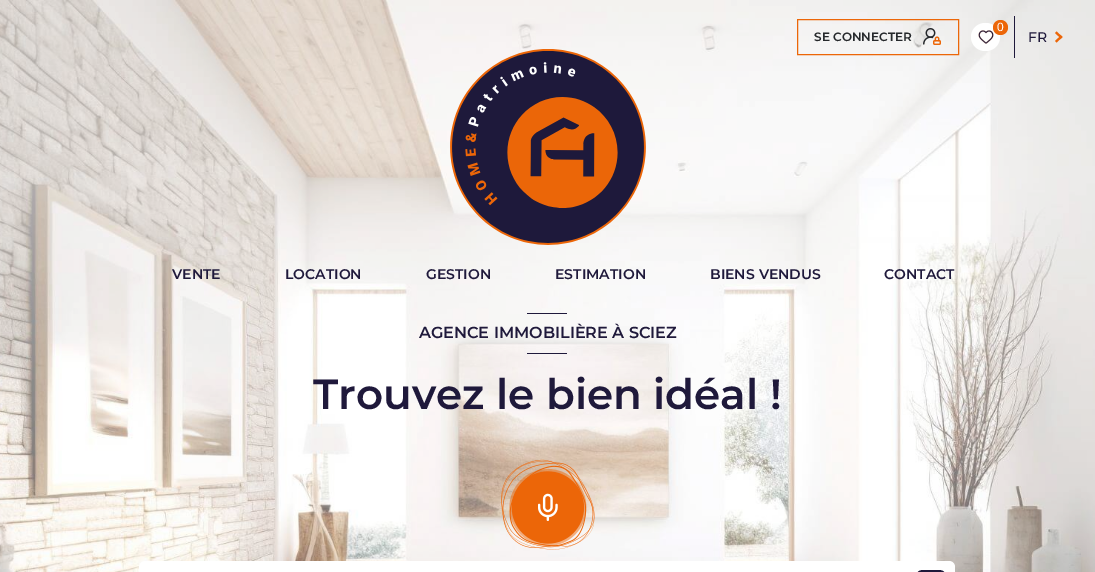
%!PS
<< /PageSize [1095 572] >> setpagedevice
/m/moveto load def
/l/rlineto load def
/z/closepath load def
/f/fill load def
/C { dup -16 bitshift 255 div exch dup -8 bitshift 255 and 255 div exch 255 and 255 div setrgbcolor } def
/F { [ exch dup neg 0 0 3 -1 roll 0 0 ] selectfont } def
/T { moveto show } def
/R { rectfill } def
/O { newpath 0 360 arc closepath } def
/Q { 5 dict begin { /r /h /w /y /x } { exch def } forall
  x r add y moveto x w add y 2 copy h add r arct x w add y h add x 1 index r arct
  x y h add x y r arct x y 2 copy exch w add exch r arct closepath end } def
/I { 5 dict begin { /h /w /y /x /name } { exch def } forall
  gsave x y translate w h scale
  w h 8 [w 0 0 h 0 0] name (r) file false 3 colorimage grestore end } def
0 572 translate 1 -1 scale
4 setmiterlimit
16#FFFFFF C
0 0 1095 572 R
(1.rgb) 0 0 1095 572 I
971 23 29 28 14 Q f
(2.rgb) 978 30 16 14 I
16#EC6608 C
1000.5 27.5 7.5 O f
/LiberationSans-Regular 12 F
16#FFFFFF C
(0) 997 31 T
16#EC6608 C
797.5 19.5 161 35 rectstroke
/Montserrat-SemiBold 12 F
16#25282B C
(SE CONNECTER) 814 41 T
(3.rgb) 923 28 18 17 I
16#1F193B C
1014 16 1 42 R
/Montserrat-Medium 14 F
(FR) 1028 42 T
16#EC6608 C
1055 33 m 1.5 -1.5 l 6 5.5 l -1.5 1.5 l z f
1055 41 m 6 -5.5 l 1.5 1.5 l -6 5.5 l z f
(4.rgb) 450 49 196 196 I
/Montserrat-SemiBold 14 F
16#1F193B C
(VENTE) 172 279 T
(LOCATION) 285 279 T
(GESTION) 426 279 T
(ESTIMATION) 555 279 T
(BIENS VENDUS) 710 279 T
(CONTACT) 884 279 T
527 313 40 1 R
/Montserrat-SemiBold 16 F
(AGENCE IMMOBILIÈRE À SCIEZ) 419 338 T
527 353 40 1 R
/Montserrat-SemiBold 42 F
(Trouvez le bien idéal !) 313 409 T
(5.rgb) 501 459 94 91 I
16#FFFFFF C
139 561 816 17 6 Q f
16#1F193B C
915 570 32 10 8 Q f
showpage
